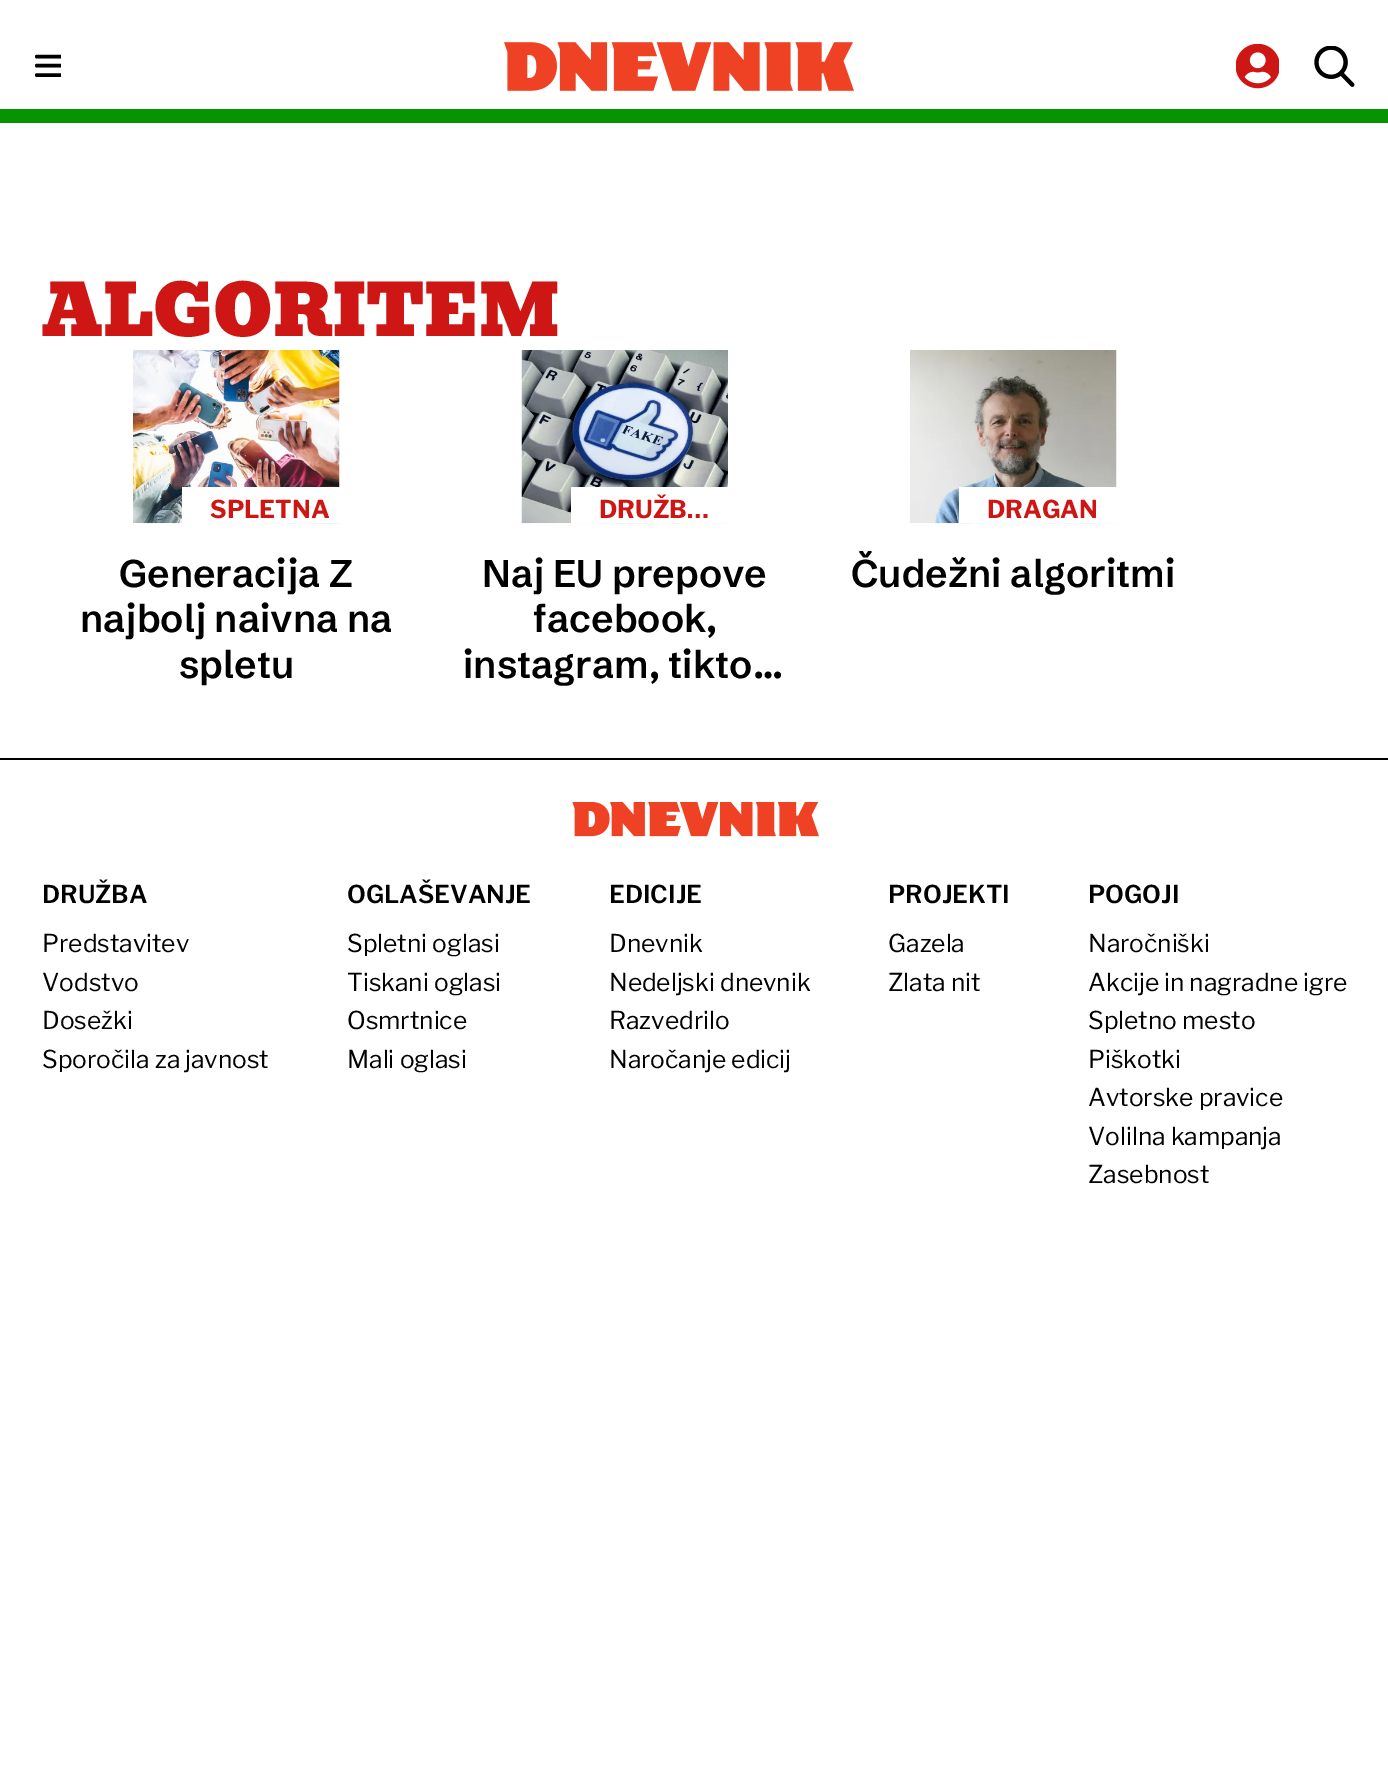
%!PS
<< /PageSize [1388 1769] >> setpagedevice
/m/moveto load def
/l/rlineto load def
/s/stroke load def
/q/gsave load def
/Q_/grestore load def
/w/setlinewidth load def
/C { dup -16 bitshift 255 div exch dup -8 bitshift 255 and 255 div exch 255 and 255 div setrgbcolor } def
/F { [ exch dup neg 0 0 3 -1 roll 0 0 ] selectfont } def
/T { moveto show } def
/R { rectfill } def
/I { 5 dict begin { /h /w /y /x /name } { exch def } forall
  gsave x y translate w h scale
  w h 8 [w 0 0 h 0 0] name (r) file false 3 colorimage grestore end } def
0 1769 translate 1 -1 scale
4 setmiterlimit
16#FFFFFF C
0 0 1388 1769 R
16#069500 C
0 109 1388 14 R
q
35 54 26 23 rectclip
16#000000 C
3.4 w
1 setlinecap
1 setlinejoin
36.5 65.5 m 28.5 0 l 36.5 56.5 m 28.5 0 l 36.5 75 m 28.5 0 l s
Q_
(1.rgb) 504 42 350 49 I
(2.rgb) 1236 44 43 45 I
(3.rgb) 1314 46 41 41 I
/Bevan-Regular 70 F
16#CE1715 C
(ALGORITEM) 42 336 T
(4.rgb) 133 350 207 174 I
16#FFFFFF C
182 487 158 36 R
/LibreFranklin-Bold 24.5 F
16#CE1715 C
(SPLETNA) 210 518 T
/SchibstedGrotesk-SemiBold 38.5 F
16#000000 C
(Generacija Z) 119 587 T
(najbolj naivna na) 80 632 T
(spletu) 179 678 T
(5.rgb) 521 350 207 174 I
16#FFFFFF C
571 487 157 36 R
/LibreFranklin-Bold 24.5 F
16#CE1715 C
(DRUŽB…) 599 518 T
/SchibstedGrotesk-SemiBold 38.5 F
16#000000 C
(Naj EU prepove) 482 587 T
(facebook,) 533 632 T
(instagram, tikto…) 463 678 T
(6.rgb) 910 350 207 174 I
16#FFFFFF C
959 487 158 36 R
/LibreFranklin-Bold 24.5 F
16#CE1715 C
(DRAGAN) 987 518 T
q
833 551 361 46 rectclip
/SchibstedGrotesk-SemiBold 38.5 F
16#000000 C
(Čudežni algoritmi) 851 587 T
Q_
16#000000 C
0 758 1388 2 R
(7.rgb) 572 802 247 35 I
/LibreFranklin-SemiBold 24.5 F
(DRUŽBA) 42 903 T
/LibreFranklin-Regular 24.5 F
(Predstavitev) 42 952 T
(Vodstvo) 42 991 T
(Dosežki) 42 1029 T
(Sporočila za javnost) 42 1068 T
/LibreFranklin-SemiBold 24.5 F
(OGLAŠEVANJE) 347 903 T
/LibreFranklin-Regular 24.5 F
(Spletni oglasi) 347 952 T
(Tiskani oglasi) 347 991 T
(Osmrtnice) 347 1029 T
(Mali oglasi) 347 1068 T
/LibreFranklin-SemiBold 24.5 F
(EDICIJE) 609 903 T
/LibreFranklin-Regular 24.5 F
(Dnevnik) 609 952 T
(Nedeljski dnevnik) 609 991 T
(Razvedrilo) 609 1029 T
(Naročanje edicij) 609 1068 T
/LibreFranklin-SemiBold 24.5 F
(PROJEKTI) 888 903 T
/LibreFranklin-Regular 24.5 F
(Gazela) 888 952 T
(Zlata nit) 888 991 T
/LibreFranklin-SemiBold 24.5 F
(POGOJI) 1088 903 T
/LibreFranklin-Regular 24.5 F
(Naročniški) 1088 952 T
(Akcije in nagradne igre) 1088 991 T
(Spletno mesto) 1088 1029 T
(Piškotki) 1088 1068 T
(Avtorske pravice) 1088 1106 T
(Volilna kampanja) 1088 1145 T
(Zasebnost) 1088 1183 T
showpage
